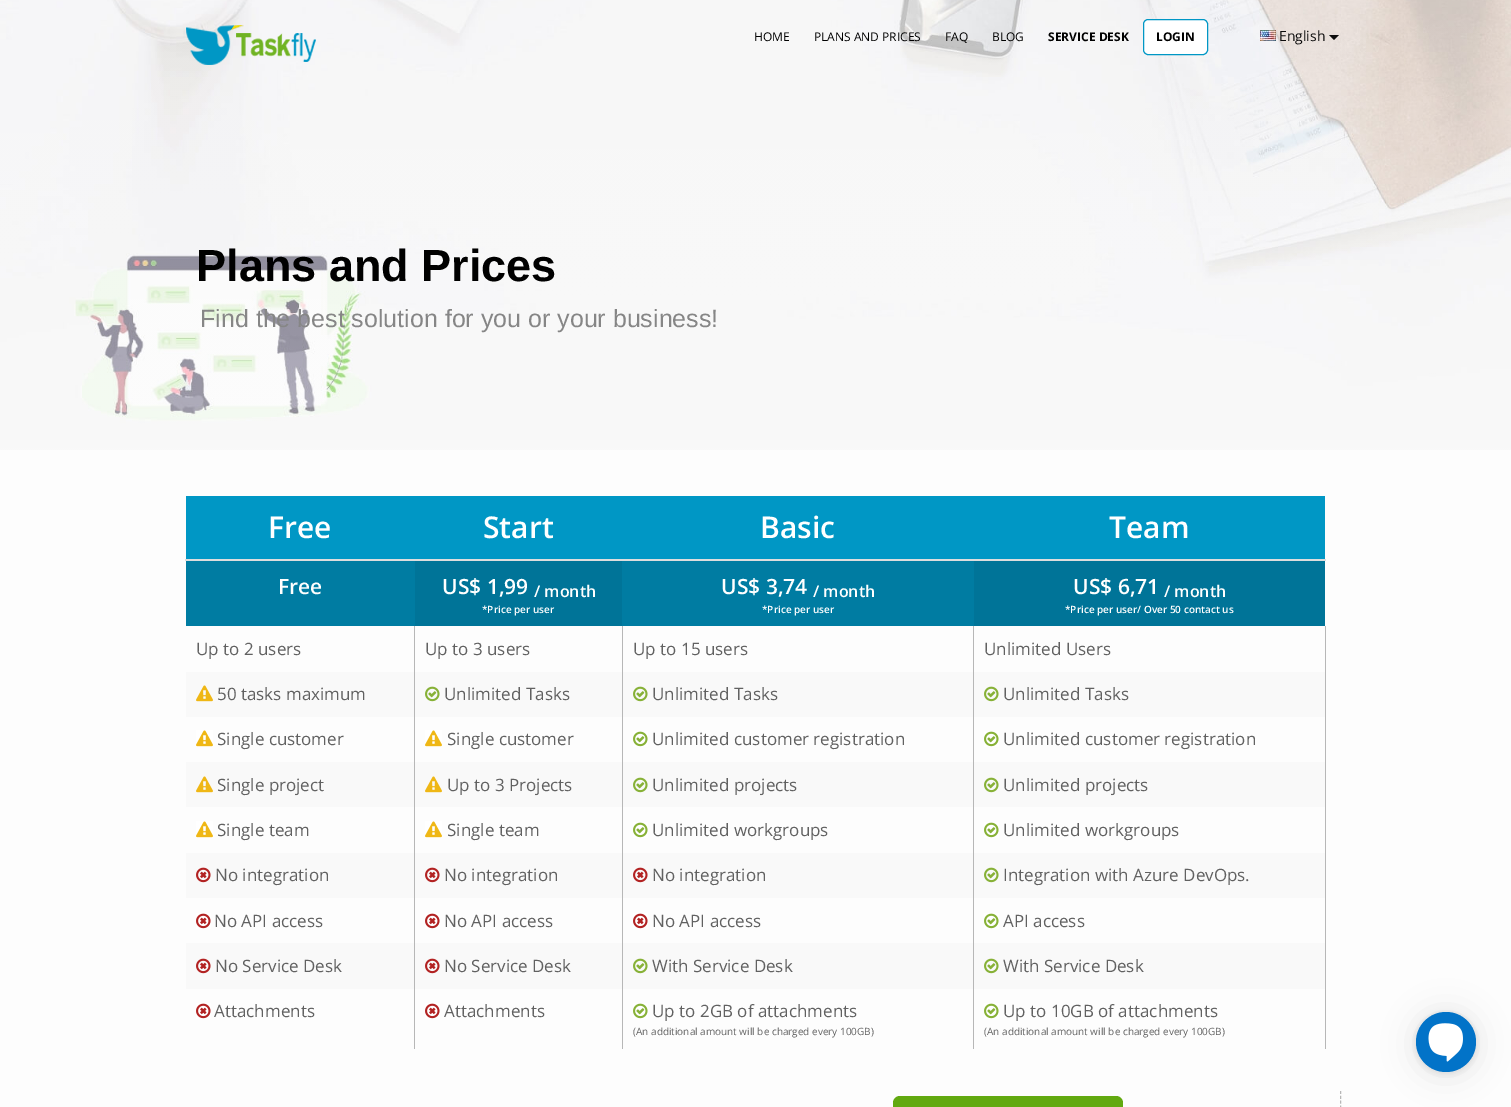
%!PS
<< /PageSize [1511 1107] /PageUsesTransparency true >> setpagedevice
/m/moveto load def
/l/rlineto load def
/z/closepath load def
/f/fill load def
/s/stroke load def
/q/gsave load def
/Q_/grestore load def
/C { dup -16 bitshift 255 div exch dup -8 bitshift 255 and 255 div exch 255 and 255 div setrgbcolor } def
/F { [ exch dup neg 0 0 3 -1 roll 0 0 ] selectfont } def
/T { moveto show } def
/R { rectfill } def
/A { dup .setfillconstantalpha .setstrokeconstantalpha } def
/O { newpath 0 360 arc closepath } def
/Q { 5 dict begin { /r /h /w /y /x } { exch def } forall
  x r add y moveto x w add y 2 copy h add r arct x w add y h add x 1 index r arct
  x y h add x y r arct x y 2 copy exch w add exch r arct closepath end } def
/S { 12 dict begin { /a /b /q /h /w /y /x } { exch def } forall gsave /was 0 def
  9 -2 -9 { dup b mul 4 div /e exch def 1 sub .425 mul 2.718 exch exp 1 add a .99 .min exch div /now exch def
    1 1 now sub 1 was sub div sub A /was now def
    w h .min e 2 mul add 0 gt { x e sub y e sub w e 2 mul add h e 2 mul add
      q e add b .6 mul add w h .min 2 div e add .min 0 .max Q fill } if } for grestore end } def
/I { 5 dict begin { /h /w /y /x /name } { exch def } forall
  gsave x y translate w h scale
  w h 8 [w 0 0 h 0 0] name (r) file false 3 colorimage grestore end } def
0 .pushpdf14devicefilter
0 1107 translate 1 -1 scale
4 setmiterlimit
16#FDFDFD C
0 0 1511 1107 R
(3.rgb) 0 0 1511 450 I
(1.rgb) 186 25 130 40 I
/OpenSans-Regular 12 F
16#000000 C
(HOME) 754 41 T
(PLANS AND PRICES) 814 41 T
(FAQ) 945 41 T
(BLOG) 992 41 T
/OpenSans-Bold 12 F
(SERVICE DESK) 1048 41 T
16#FFFFFF C
1143.5 19.5 64 35 4.5 Q q f Q_
16#0097C5 C
s
16#000000 C
(LOGIN) 1156 41 T
(2.rgb) 1260 30 16 11 I
/OpenSans-Regular 14 F
16#0C0C0C C
(English) 1279 41 T
1329 35 m 10 0 l -5 5 l z f
/LiberationSans-Bold 45 F
16#000000 C
(Plans and Prices) 196 281 T
/LiberationSans-Regular 25 F
16#868686 C
(Find the best solution for you or your business!) 200 327 T
16#0097C5 C
186 496 1139 63 R
/OpenSans-SemiBold 30 F
16#FFFFFF C
(Free) 268 538 T
(Start) 483 538 T
(Basic) 760 538 T
16#DDDDDD C
185 559 1141 2 R
16#FFFFFF C
(Team) 1109 538 T
16#007CA2 C
186 561 229 65 R
/OpenSans-SemiBold 21 F
16#FFFFFF C
(Free) 278 594 T
16#007498 C
415 561 207 65 R
16#FFFFFF C
(US$ 1,99) 442 594 T
/OpenSans-SemiBold 16 F
(/ month) 534 597 T
/OpenSans-SemiBold 10 F
(*Price per user) 482 613 T
16#007CA2 C
622 561 352 65 R
/OpenSans-SemiBold 21 F
16#FFFFFF C
(US$ 3,74) 721 594 T
/OpenSans-SemiBold 16 F
(/ month) 813 597 T
/OpenSans-SemiBold 10 F
(*Price per user) 762 613 T
16#007498 C
974 561 351 65 R
/OpenSans-SemiBold 21 F
16#FFFFFF C
(US$ 6,71) 1073 594 T
/OpenSans-SemiBold 16 F
(/ month) 1164 597 T
/OpenSans-SemiBold 10 F
(*Price per user/ Over 50 contact us) 1065 613 T
/OpenSans-Regular 17 F
16#616161 C
(Up to 2 users) 196 655 T
(Up to 3 users) 425 655 T
(Up to 15 users) 633 655 T
(Unlimited Users) 984 655 T
16#F9F9F9 C
186 672 1139 45 R
(4.rgb) 196 685 17 17 I
16#616161 C
(50 tasks maximum) 217 700 T
(5.rgb) 425 686 15 16 I
(Unlimited Tasks) 444 700 T
(5.rgb) 633 686 15 16 I
(Unlimited Tasks) 652 700 T
(5.rgb) 984 686 15 16 I
(Unlimited Tasks) 1003 700 T
(6.rgb) 196 730 17 17 I
(Single customer) 217 745 T
(6.rgb) 425 730 17 17 I
(Single customer) 447 745 T
(7.rgb) 633 731 15 16 I
(Unlimited customer registration) 652 745 T
(7.rgb) 984 731 15 16 I
(Unlimited customer registration) 1003 745 T
16#F9F9F9 C
186 762 1139 45 R
(4.rgb) 196 776 17 17 I
16#616161 C
(Single project) 217 791 T
(4.rgb) 425 776 17 17 I
(Up to 3 Projects) 447 791 T
(5.rgb) 633 777 15 16 I
(Unlimited projects) 652 791 T
(5.rgb) 984 777 15 16 I
(Unlimited projects) 1003 791 T
(6.rgb) 196 821 17 17 I
(Single team) 217 836 T
(6.rgb) 425 821 17 17 I
(Single team) 447 836 T
(7.rgb) 633 822 15 16 I
(Unlimited workgroups) 652 836 T
(7.rgb) 984 822 15 16 I
(Unlimited workgroups) 1003 836 T
16#F9F9F9 C
186 853 1139 45 R
(8.rgb) 196 867 15 16 I
16#616161 C
(No integration) 215 881 T
(8.rgb) 425 867 15 16 I
(No integration) 444 881 T
(8.rgb) 633 867 15 16 I
(No integration) 652 881 T
(5.rgb) 984 867 15 16 I
(Integration with Azure DevOps.) 1003 881 T
(9.rgb) 196 913 15 16 I
(No API access) 214 927 T
(9.rgb) 425 913 15 16 I
(No API access) 444 927 T
(9.rgb) 633 913 15 16 I
(No API access) 652 927 T
(7.rgb) 984 913 15 16 I
(API access) 1003 927 T
16#F9F9F9 C
186 943 1139 46 R
(8.rgb) 196 958 15 16 I
16#616161 C
(No Service Desk) 215 972 T
(8.rgb) 425 958 15 16 I
(No Service Desk) 444 972 T
(5.rgb) 633 958 15 16 I
(With Service Desk) 652 972 T
(5.rgb) 984 958 15 16 I
(With Service Desk) 1003 972 T
16#B7B7B7 C
414 626 1 423 R
(9.rgb) 196 1003 15 16 I
16#616161 C
(Attachments) 214 1017 T
16#B7B7B7 C
622 626 1 423 R
(9.rgb) 425 1003 15 16 I
16#616161 C
(Attachments) 444 1017 T
16#B7B7B7 C
973 626 1 423 R
(7.rgb) 633 1003 15 16 I
16#616161 C
(Up to 2GB of attachments) 652 1017 T
/OpenSans-Regular 10 F
(\(An additional amount will be charged every 100GB\)) 633 1035 T
16#B7B7B7 C
1325 626 1 423 R
(7.rgb) 984 1003 15 16 I
/OpenSans-Regular 17 F
16#616161 C
(Up to 10GB of attachments) 1003 1017 T
/OpenSans-Regular 10 F
(\(An additional amount will be charged every 100GB\)) 984 1035 T
16#000000 C
1416 1014 60 60 30 16 .1 S
1416 1013 60 60 30 3 .1 S
16#0273C8 C
1446 1042 30 O f
(10.rgb) 1428 1023 35 39 I
16#B7B7B7 C
[3 1.85] 0 setdash
1340.5 1091 m 0 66 l s
16#62A910 C
893 1096 230 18 7 Q f
.poppdf14devicefilter showpage
